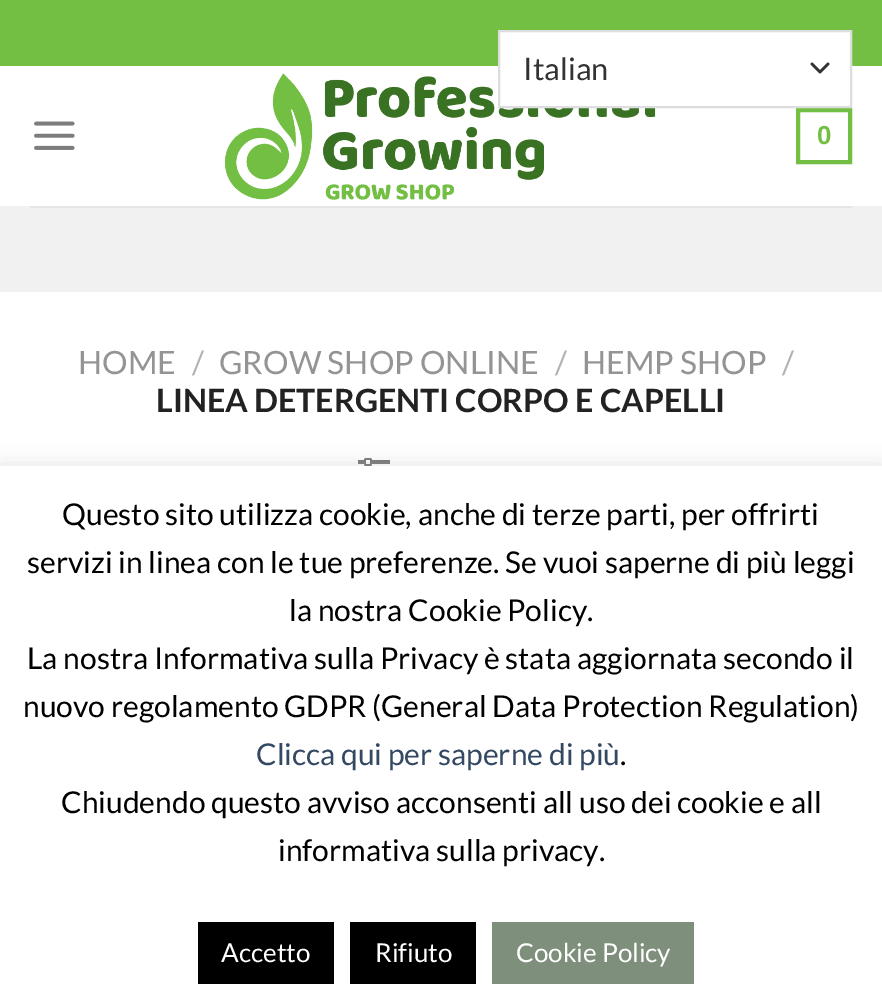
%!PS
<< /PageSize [882 1008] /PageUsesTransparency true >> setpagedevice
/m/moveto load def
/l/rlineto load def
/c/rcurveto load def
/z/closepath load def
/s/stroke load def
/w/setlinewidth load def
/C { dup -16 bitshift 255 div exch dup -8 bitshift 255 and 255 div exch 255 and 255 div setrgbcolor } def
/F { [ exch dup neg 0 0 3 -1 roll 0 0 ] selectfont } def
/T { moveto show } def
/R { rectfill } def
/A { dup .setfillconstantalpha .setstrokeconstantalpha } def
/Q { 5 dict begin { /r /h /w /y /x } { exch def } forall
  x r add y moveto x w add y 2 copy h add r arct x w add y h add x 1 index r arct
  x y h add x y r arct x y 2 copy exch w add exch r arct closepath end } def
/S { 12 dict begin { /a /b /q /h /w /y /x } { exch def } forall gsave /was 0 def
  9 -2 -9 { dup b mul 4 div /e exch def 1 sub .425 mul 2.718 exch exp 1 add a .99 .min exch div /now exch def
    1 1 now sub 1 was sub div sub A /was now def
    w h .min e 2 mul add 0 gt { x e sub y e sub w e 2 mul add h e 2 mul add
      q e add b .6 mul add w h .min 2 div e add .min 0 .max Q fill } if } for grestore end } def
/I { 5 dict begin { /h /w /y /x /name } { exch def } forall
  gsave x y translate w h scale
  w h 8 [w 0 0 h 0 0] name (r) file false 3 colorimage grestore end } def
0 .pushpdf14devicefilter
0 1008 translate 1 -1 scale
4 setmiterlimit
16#FFFFFF C
0 0 882 1008 R
16#72BF44 C
0 0 882 66 R
(2.rgb) 224 73 432 127 I
4 w
798 110 52 52 rectstroke
824 96 m 7.5 0 14 6.5 14 14 c 0 2 l -28 0 l 0 -2 l 0 -7.5 6.5 -14 14 -14 c z 824 100 m 5.5 0 10 4.5 10 10 c 0 2 l -20 0 l 0 -2 l 0 -5.5 4.5 -10 10 -10 c z eofill
16#FFFFFF C
500 32 350 74 R
16#333333 C
2.7 w
1 setlinecap
1 setlinejoin
812 64 m 8 8 l 8 -8 l s
16#DDDDDD C
2 w
0 setlinecap
0 setlinejoin
499 31 352 76 rectstroke
/Lato-Regular 31 F
16#333333 C
(Italian) 523 80 T
(1.rgb) 34 121 41 29 I
/LiberationSans-Bold 26 F
16#72BF44 C
(0) 817 144 T
16#F1F1F1 C
0 206 882 86 R
16#E5E5E5 C
30 206 822 2 R
/Lato-Regular 32 F
16#949494 C
(HOME) 78 374 T
16#B2B2B2 C
(/) 192 374 T
16#949494 C
(GROW SHOP ONLINE) 219 374 T
16#B2B2B2 C
(/) 555 374 T
16#949494 C
(HEMP SHOP) 582 374 T
16#B2B2B2 C
(/) 782 374 T
/Lato-Bold 32 F
16#222222 C
(LINEA DETERGENTI CORPO E CAPELLI) 156 412 T
(3.rgb) 358 458 32 8 I
16#ACABAB C
0 464 882 542 0 10 .3 S
16#FFFFFF C
0 466 882 542 R
/Lato-Regular 30 F
16#000000 C
(Questo sito utilizza cookie, anche di terze parti, per offrirti) 62 525 T
(servizi in linea con le tue preferenze. Se vuoi saperne di più leggi) 27 573 T
(la nostra Cookie Policy.) 289 621 T
(La nostra Informativa sulla Privacy è stata aggiornata secondo il) 27 669 T
(nuovo regolamento GDPR \(General Data Protection Regulation\)) 23 717 T
16#334862 C
(Clicca qui per saperne di più) 256 765 T
16#000000 C
(.) 620 765 T
(Chiudendo questo avviso acconsenti all uso dei cookie e all) 61 813 T
(informativa sulla privacy.) 278 861 T
198 922 136 62 R
/Lato-Regular 26 F
16#FFFFFF C
(Accetto) 221 962 T
16#000000 C
350 922 126 62 R
16#FFFFFF C
(Rifiuto) 375 962 T
16#7E8F7C C
492 922 202 62 R
16#FFFFFF C
(Cookie Policy) 516 962 T
.poppdf14devicefilter showpage
